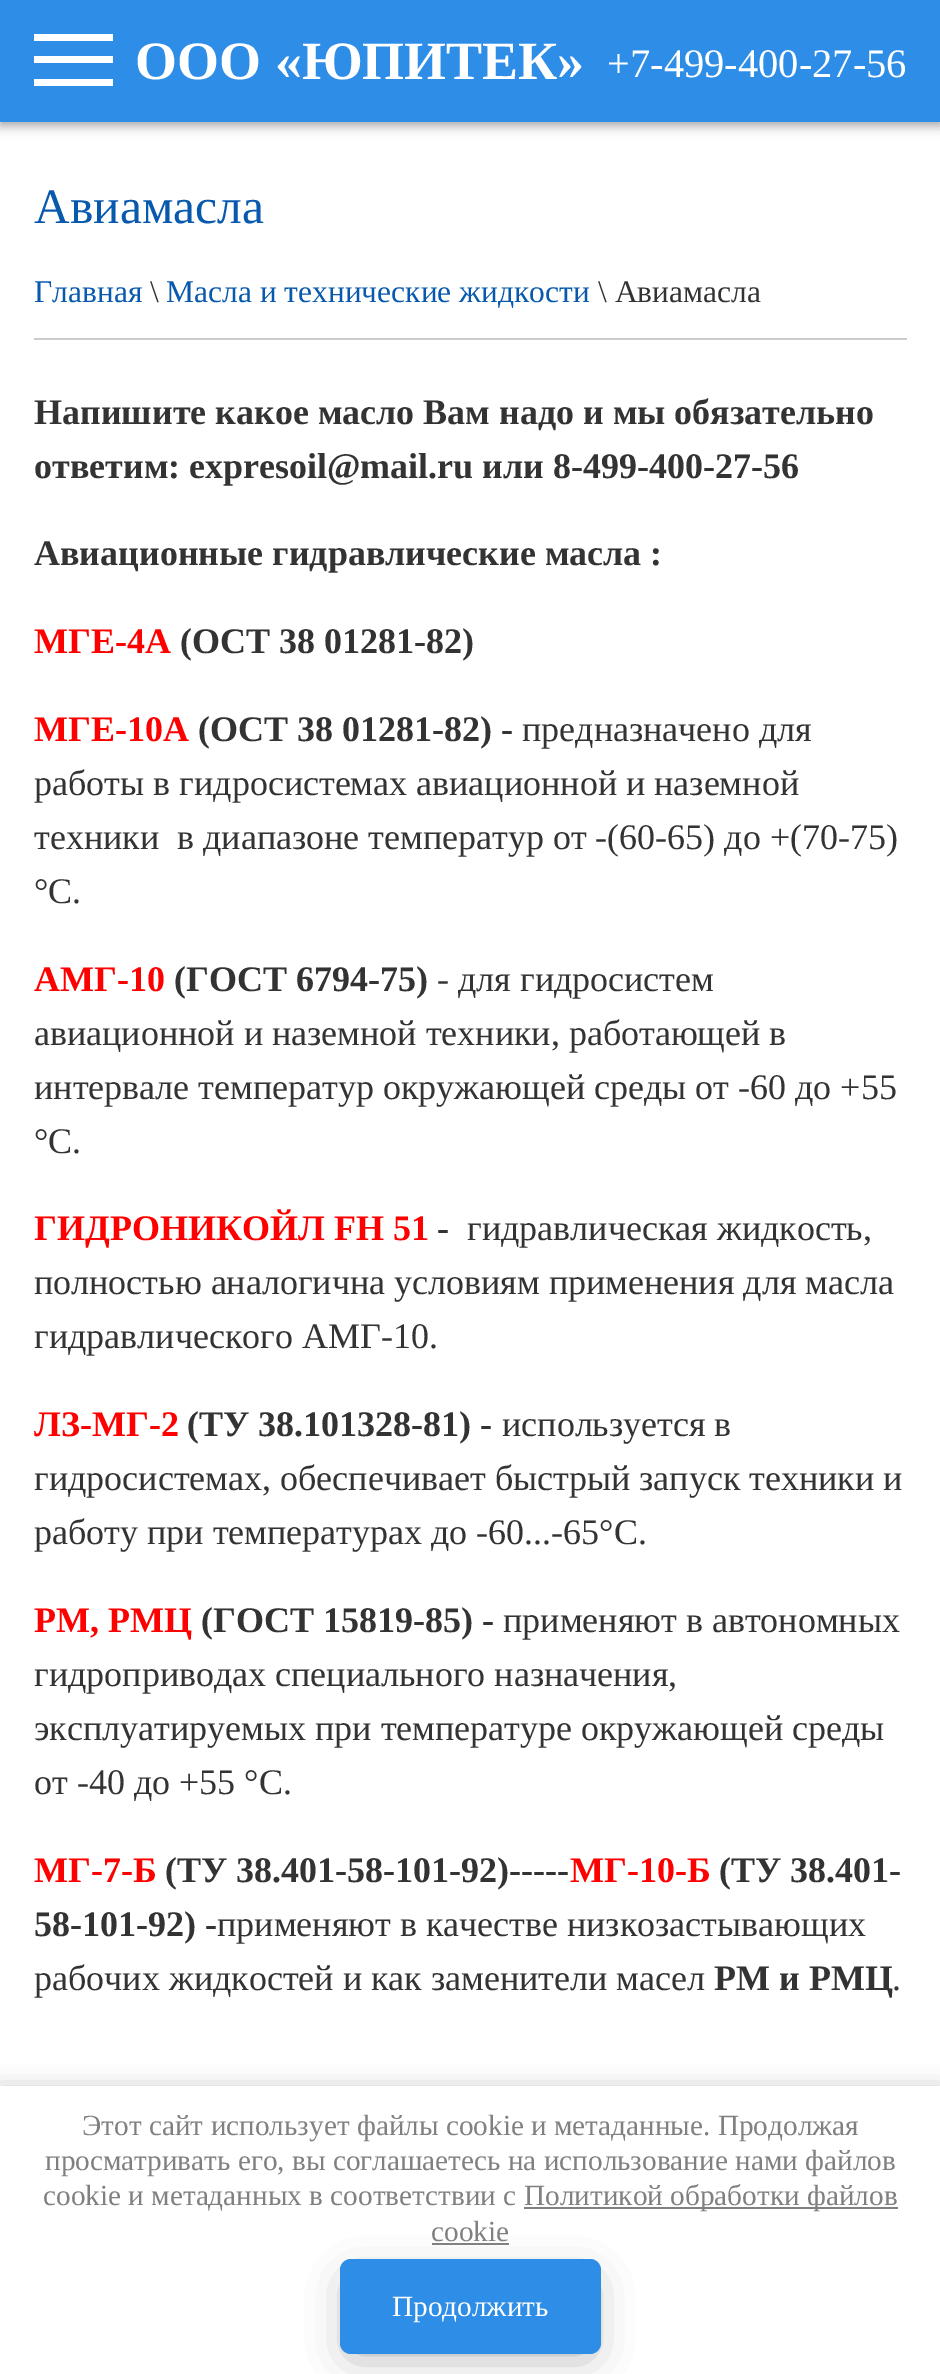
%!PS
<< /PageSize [940 2374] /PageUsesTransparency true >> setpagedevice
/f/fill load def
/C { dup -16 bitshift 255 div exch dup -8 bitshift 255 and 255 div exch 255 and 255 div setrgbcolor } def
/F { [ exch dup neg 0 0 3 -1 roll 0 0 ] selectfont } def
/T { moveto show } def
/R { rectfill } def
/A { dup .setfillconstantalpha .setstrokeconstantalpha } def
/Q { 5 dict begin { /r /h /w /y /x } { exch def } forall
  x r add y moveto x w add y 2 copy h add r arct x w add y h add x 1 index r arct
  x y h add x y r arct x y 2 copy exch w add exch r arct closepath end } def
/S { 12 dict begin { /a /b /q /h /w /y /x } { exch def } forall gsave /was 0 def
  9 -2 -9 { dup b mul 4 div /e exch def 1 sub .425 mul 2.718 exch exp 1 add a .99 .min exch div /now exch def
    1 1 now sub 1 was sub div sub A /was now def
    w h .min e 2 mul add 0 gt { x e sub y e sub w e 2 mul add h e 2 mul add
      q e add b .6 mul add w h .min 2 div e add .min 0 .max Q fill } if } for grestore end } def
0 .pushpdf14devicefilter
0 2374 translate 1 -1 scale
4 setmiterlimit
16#FFFFFF C
0 0 940 2374 R
16#000000 C
0 5 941 121 0 7 .12 S
0 5 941 121 0 4.5 .24 S
16#2E8DE6 C
0 0 940 122 R
16#FFFFFF C
34 34 79 7 R
34 79 79 7 R
34 56 79 7 R
/LiberationSerif-Bold 54 F
(ООО «ЮПИТЕК») 135 79 T
/LiberationSerif-Regular 40.5 F
(+7-499-400-27-56) 607 77 T
/LiberationSerif-Regular 49.5 F
16#0759AE C
(Авиамасла) 34 223 T
16#CCCCCC C
34 338 873 2 R
/LiberationSerif-Regular 31.5 F
16#0759AE C
(Главная) 34 302 T
16#333333 C
(\\) 150 302 T
16#0759AE C
(Масла и технические жидкости) 166 302 T
16#333333 C
(\\ Авиамасла) 598 302 T
/LiberationSerif-Bold 36 F
(Напишите какое масло Вам надо и мы обязательно) 34 424 T
(ответим: expresoil@mail.ru или 8-499-400-27-56) 34 478 T
(Авиационные гидравлические масла :) 34 565 T
16#FF0000 C
(МГЕ-4А) 34 653 T
16#333333 C
(\(ОСТ 38 01281-82\)) 180 653 T
16#FF0000 C
(МГЕ-10А) 34 741 T
16#333333 C
(\(ОСТ 38 01281-82\) -) 198 741 T
/LiberationSerif-Regular 36 F
(предназначено для) 522 741 T
(работы в гидросистемах авиационной и наземной) 34 795 T
(техники  в диапазоне температур от -\(60-65\) до +\(70-75\)) 34 849 T
(°С.) 34 903 T
/LiberationSerif-Bold 36 F
16#FF0000 C
(АМГ-10) 34 991 T
16#333333 C
(\(ГОСТ 6794-75\)) 174 991 T
/LiberationSerif-Regular 36 F
(- для гидросистем) 437 991 T
(авиационной и наземной техники, работающей в) 34 1045 T
(интервале температур окружающей среды от -60 до +55) 34 1099 T
(°С.) 34 1153 T
/LiberationSerif-Bold 36 F
16#FF0000 C
(ГИДРОНИКОЙЛ FH 51) 34 1240 T
16#333333 C
(-) 437 1240 T
/LiberationSerif-Regular 36 F
(гидравлическая жидкость,) 467 1240 T
(полностью аналогична условиям применения для масла) 34 1294 T
(гидравлического АМГ-10.) 34 1348 T
/LiberationSerif-Bold 36 F
16#FF0000 C
(ЛЗ-МГ-2) 34 1436 T
16#333333 C
(\(ТУ 38.101328-81\) -) 187 1436 T
/LiberationSerif-Regular 36 F
(используется в) 502 1436 T
(гидросистемах, обеспечивает быстрый запуск техники и) 34 1490 T
(работу при температурах до -60...-65°С.) 34 1544 T
/LiberationSerif-Bold 36 F
16#FF0000 C
(РМ, РМЦ) 34 1632 T
16#333333 C
(\(ГОСТ 15819-85\) -) 201 1632 T
/LiberationSerif-Regular 36 F
(применяют в автономных) 503 1632 T
(гидроприводах специального назначения,) 34 1686 T
(эксплуатируемых при температуре окружающей среды) 34 1740 T
(от -40 до +55 °С.) 34 1794 T
/LiberationSerif-Bold 36 F
16#FF0000 C
(МГ-7-Б) 34 1882 T
16#333333 C
(\(ТУ 38.401-58-101-92\)-----) 165 1882 T
16#FF0000 C
(МГ-10-Б) 570 1882 T
16#333333 C
(\(ТУ 38.401-) 719 1882 T
(58-101-92\) -) 34 1936 T
/LiberationSerif-Regular 36 F
(применяют в качестве низкозастывающих) 217 1936 T
(рабочих жидкостей и как заменители масел) 34 1990 T
/LiberationSerif-Bold 36 F
(РМ и РМЦ) 714 1990 T
/LiberationSerif-Regular 36 F
(.) 892 1990 T
16#000000 C
0 2088 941 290 0 11 .23 S
16#FFFFFF C
0 2086 940 288 R
/LiberationSerif-Regular 29.25 F
16#808080 C
(Этот сайт использует файлы cookie и метаданные. Продолжая) 82 2135 T
(просматривать его, вы соглашаетесь на использование нами файлов) 45 2170 T
(cookie и метаданных в соответствии с) 43 2205 T
524 2207 374 2 R
(Политикой обработки файлов) 524 2205 T
(cookie) 431 2241 T
432 2243 77 2 R
16#9D9D9D C
353 2284 234 67 0 21.5 1 S
16#2E8DE6 C
340 2259 261 95 11 Q f
16#FFFFFF C
(Продолжить) 392 2316 T
.poppdf14devicefilter showpage
